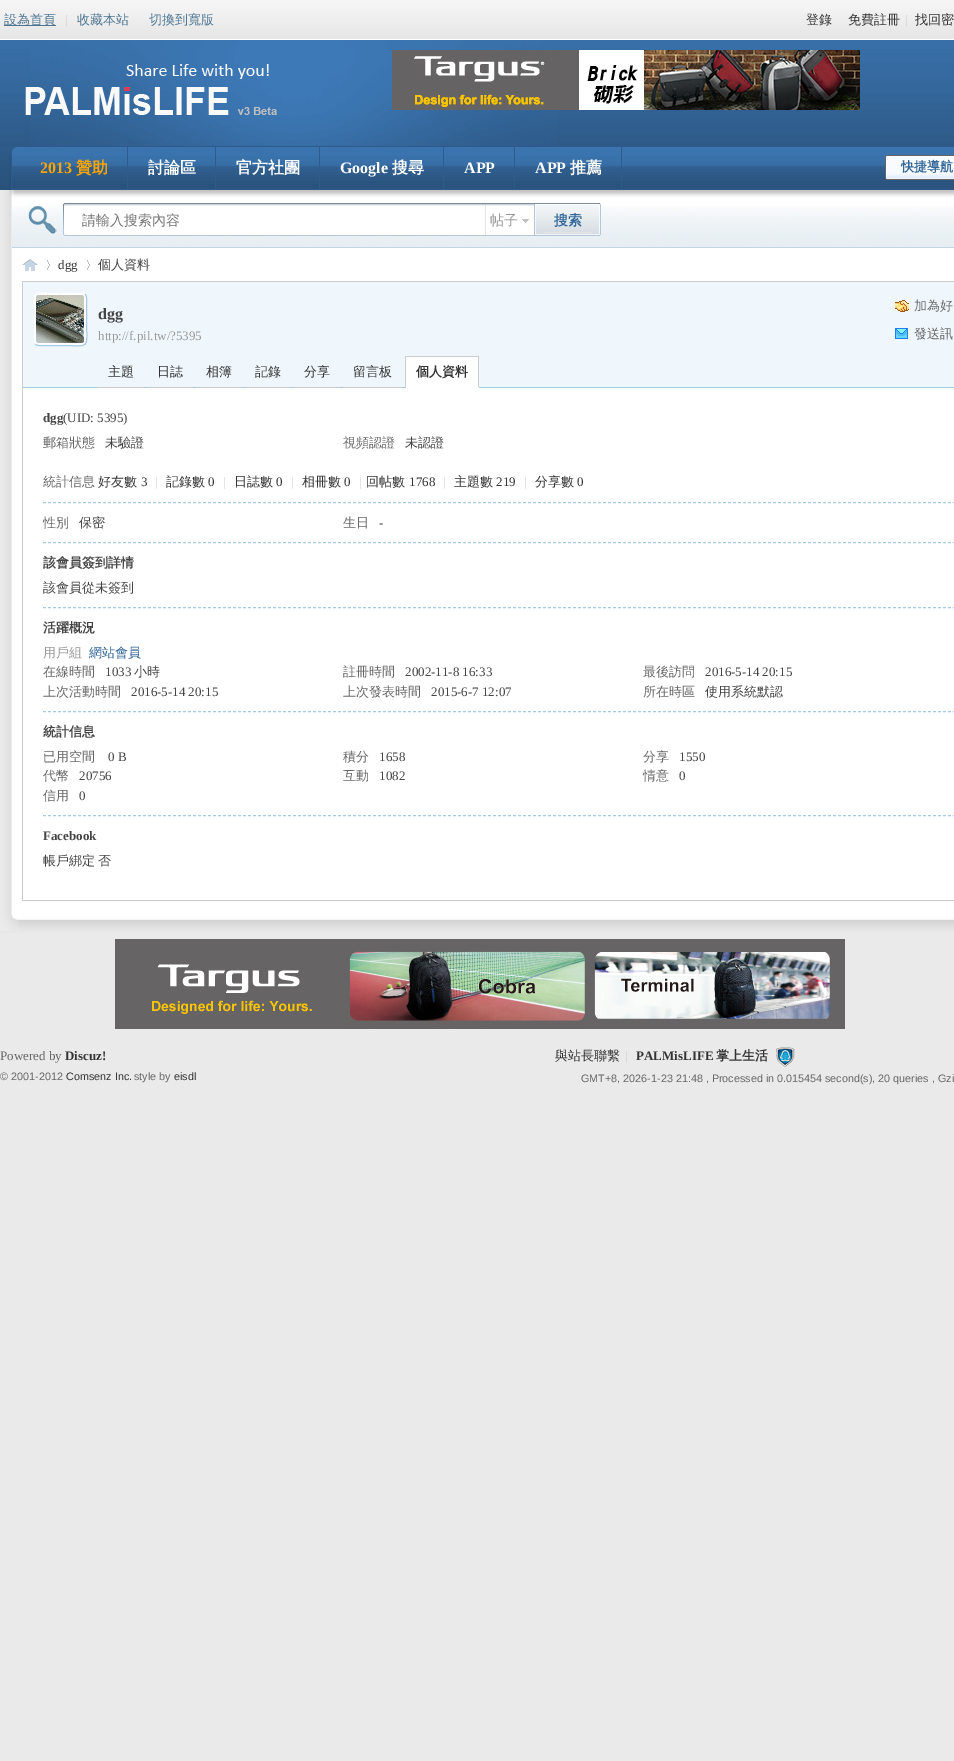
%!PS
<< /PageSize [954 1761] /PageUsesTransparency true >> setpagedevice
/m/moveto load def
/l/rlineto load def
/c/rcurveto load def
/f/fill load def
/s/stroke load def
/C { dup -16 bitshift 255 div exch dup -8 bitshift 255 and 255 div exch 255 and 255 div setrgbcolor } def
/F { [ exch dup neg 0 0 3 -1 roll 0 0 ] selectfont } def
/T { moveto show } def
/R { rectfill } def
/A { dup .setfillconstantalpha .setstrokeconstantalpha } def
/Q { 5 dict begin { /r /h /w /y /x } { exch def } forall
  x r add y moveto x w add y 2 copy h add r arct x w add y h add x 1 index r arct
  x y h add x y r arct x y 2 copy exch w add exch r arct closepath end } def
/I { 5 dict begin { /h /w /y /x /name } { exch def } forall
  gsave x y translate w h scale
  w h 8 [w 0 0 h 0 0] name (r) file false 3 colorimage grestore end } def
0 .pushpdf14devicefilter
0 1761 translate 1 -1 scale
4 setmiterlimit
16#EAEAEA C
0 0 954 1761 R
(1.rgb) 0 40 954 106 I
(2.rgb) 0 0 954 40 I
16#4D7591 C
4 25 52 1 R
/WenQuanYiZenHei-Medium 13 F
(設為首頁) 4 24 T
/LiberationSerif-Regular 13 F
16#CCCCCC C
(|) 65 24 T
/WenQuanYiZenHei-Medium 13 F
16#4D7591 C
(收藏本站) 77 24 T
(切換到寬版) 149 24 T
16#333333 C
(登錄) 806 24 T
(免費註冊) 848 24 T
/LiberationSerif-Regular 13 F
16#CCCCCC C
(|) 905 24 T
/WenQuanYiZenHei-Medium 13 F
16#333333 C
(找回密) 915 24 T
(3.rgb) 30 40 528 106 I
(4.rgb) 25 64 252 51 I
(5.rgb) 392 50 468 60 I
(6.rgb) 0 146 954 44 I
(7.rgb) 0 147 16 43 I
16#2E5B8A C
127 147 1 42 R
/LiberationSerif-Bold 16 F
16#FFA500 C
(2013) 40 173 T
/WenQuanYiZenHei-Bold 16 F
(贊助) 76 173 T
16#2E5B8A C
215 147 1 42 R
16#FFFFFF C
(討論區) 148 173 T
16#2E5B8A C
319 147 1 42 R
16#FFFFFF C
(官方社團) 236 173 T
16#2E5B8A C
443 147 1 42 R
/LiberationSerif-Bold 16 F
16#FFFFFF C
(Google) 340 173 T
/WenQuanYiZenHei-Bold 16 F
(搜尋) 392 173 T
0.94 A
16#2E5B8A C
514 147 1 42 R
/LiberationSerif-Bold 16 F
1 A
16#FFFFFF C
(APP) 464 173 T
0.94 A
16#2E5B8A C
621 147 1 42 R
1 A
16#FFFFFF C
(APP) 535 173 T
/WenQuanYiZenHei-Bold 16 F
(推薦) 570 173 T
(8.rgb) 885 155 69 25 I
/WenQuanYiZenHei-Bold 13 F
16#336699 C
(快捷導航) 901 171 T
16#FFFFFF C
12 205 942 709 R
(9.rgb) 0 205 12 709 I
(10.rgb) 15 190 939 15 I
(11.rgb) 0 190 15 15 I
(12.rgb) 0 914 954 20 I
(13.rgb) 0 914 19 17 I
(14.rgb) 12 206 942 42 I
(15.rgb) 28 203 51 33 I
(16.rgb) 79 203 406 33 I
/WenQuanYiZenHei-Medium 14 F
16#757575 C
(請輸入搜索內容) 82 225 T
(17.rgb) 485 203 49 33 I
(18.rgb) 522 219 7 4 I
16#999999 C
(帖子) 490 225 T
(19.rgb) 534 203 67 33 I
16#E5E5E5 C
544 232 48 1 R
/WenQuanYiZenHei-Bold 14 F
16#336699 C
(搜索) 554 225 T
(20.rgb) 22 259 16 12 I
(21.rgb) 47 260 3 10 I
/LiberationSerif-Regular 13 F
16#333333 C
(dgg) 58 269 T
(21.rgb) 87 260 3 10 I
/WenQuanYiZenHei-Medium 13 F
16#444444 C
(個人資料) 98 269 T
16#F0F7FC C
23 282 931 105 R
16#CCCCCC C
22 281 932 1 R
22 281 1 107 R
16#FFFFFF C
33 292 54 54 5 Q f
16#A5CAE4 C
85 294 m 2.5 2.5 1.5 8 1.5 10.5 c 0 14.5 l 0 32 5.5 26.5 -26.5 26.5 c -14.5 0 l -2.5 0 -8 1 -10.5 -1.5 c s
16#F0F7FC C
35 344 m -2.5 -2.5 -1.5 -8 -1.5 -10.5 c 0 -14.5 l 0 -32 -5.5 -26.5 26.5 -26.5 c 14.5 0 l 2.5 0 8 -1 10.5 1.5 c s
(22.rgb) 36 295 48 48 I
/LiberationSerif-Bold 16 F
16#444444 C
(dgg) 98 319 T
/LiberationSerif-Regular 13 F
16#999999 C
(http://f.pil.tw/?5395) 98 340 T
(23.rgb) 895 300 14 12 I
/WenQuanYiZenHei-Medium 13 F
16#666666 C
(加為好) 914 310 T
(24.rgb) 895 328 13 11 I
(發送訊) 914 338 T
16#A5CAE4 C
23 387 931 1 R
16#CCCCCC C
98 387 46 1 R
16#333333 C
(主題) 108 376 T
16#CCCCCC C
147 387 46 1 R
16#333333 C
(日誌) 157 376 T
16#CCCCCC C
196 387 46 1 R
16#333333 C
(相簿) 206 376 T
16#CCCCCC C
245 387 46 1 R
16#333333 C
(記錄) 255 376 T
16#CCCCCC C
294 387 46 1 R
16#333333 C
(分享) 304 376 T
16#CCCCCC C
343 387 59 1 R
16#333333 C
(留言板) 353 376 T
16#FFFFFF C
406 357 72 30 R
16#CCCCCC C
405 356 74 1 R
478 356 1 32 R
16#FFFFFF C
405 387 74 1 R
16#CCCCCC C
405 356 1 32 R
/WenQuanYiZenHei-Bold 13 F
16#333333 C
(個人資料) 416 376 T
16#CCCCCC C
22 900 932 1 R
22 388 1 513 R
16#A5CAE4 C
[3 2] 0 setdash
43 542.5 m 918 0 l s
/LiberationSerif-Bold 13 F
16#444444 C
(dgg) 43 422 T
/LiberationSerif-Regular 13 F
(\(UID: 5395\)) 63 422 T
/WenQuanYiZenHei-Medium 13 F
16#666666 C
(郵箱狀態) 43 447 T
16#444444 C
(未驗證) 105 447 T
16#666666 C
(視頻認證) 343 447 T
16#444444 C
(未認證) 405 447 T
16#A5CAE4 C
43 502.5 m 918 0 l s
16#666666 C
(統計信息) 43 486 T
16#333333 C
(好友數) 98 486 T
/LiberationSerif-Regular 13 F
(3) 141 486 T
16#CCCCCC C
(|) 155 486 T
/WenQuanYiZenHei-Medium 13 F
16#333333 C
(記錄數) 166 486 T
/LiberationSerif-Regular 13 F
(0) 208 486 T
16#CCCCCC C
(|) 223 486 T
/WenQuanYiZenHei-Medium 13 F
16#333333 C
(日誌數) 234 486 T
/LiberationSerif-Regular 13 F
(0) 276 486 T
16#CCCCCC C
(|) 291 486 T
/WenQuanYiZenHei-Medium 13 F
16#333333 C
(相冊數) 302 486 T
/LiberationSerif-Regular 13 F
(0) 344 486 T
16#CCCCCC C
(|) 359 486 T
/WenQuanYiZenHei-Medium 13 F
16#333333 C
(回帖數) 366 486 T
/LiberationSerif-Regular 13 F
(1768) 409 486 T
16#CCCCCC C
(|) 443 486 T
/WenQuanYiZenHei-Medium 13 F
16#333333 C
(主題數) 454 486 T
/LiberationSerif-Regular 13 F
(219) 496 486 T
16#CCCCCC C
(|) 524 486 T
/WenQuanYiZenHei-Medium 13 F
16#333333 C
(分享數) 535 486 T
/LiberationSerif-Regular 13 F
(0) 577 486 T
/WenQuanYiZenHei-Medium 13 F
16#666666 C
(性別) 43 527 T
16#444444 C
(保密) 79 527 T
16#666666 C
(生日) 343 527 T
/LiberationSerif-Regular 13 F
16#444444 C
(-) 379 527 T
16#A5CAE4 C
43 607.5 m 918 0 l s
/WenQuanYiZenHei-Bold 13 F
16#444444 C
(該會員簽到詳情) 43 567 T
/WenQuanYiZenHei-Medium 13 F
(該會員從未簽到) 43 592 T
16#A5CAE4 C
43 711.5 m 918 0 l s
/WenQuanYiZenHei-Bold 13 F
16#444444 C
(活躍概況) 43 632 T
/WenQuanYiZenHei-Medium 13 F
16#999999 C
(用戶組) 43 657 T
16#336699 C
(網站會員) 89 657 T
16#666666 C
(在線時間) 43 676 T
/LiberationSerif-Regular 13 F
16#444444 C
(1033) 105 676 T
/WenQuanYiZenHei-Medium 13 F
(小時) 134 676 T
16#666666 C
(註冊時間) 343 676 T
/LiberationSerif-Regular 13 F
16#444444 C
(2002-11-8 16:33) 405 676 T
/WenQuanYiZenHei-Medium 13 F
16#666666 C
(最後訪問) 643 676 T
/LiberationSerif-Regular 13 F
16#444444 C
(2016-5-14 20:15) 705 676 T
/WenQuanYiZenHei-Medium 13 F
16#666666 C
(上次活動時間) 43 696 T
/LiberationSerif-Regular 13 F
16#444444 C
(2016-5-14 20:15) 131 696 T
/WenQuanYiZenHei-Medium 13 F
16#666666 C
(上次發表時間) 343 696 T
/LiberationSerif-Regular 13 F
16#444444 C
(2015-6-7 12:07) 431 696 T
/WenQuanYiZenHei-Medium 13 F
16#666666 C
(所在時區) 643 696 T
16#444444 C
(使用系統默認) 705 696 T
/WenQuanYiZenHei-Bold 13 F
(統計信息) 43 736 T
/WenQuanYiZenHei-Medium 13 F
16#666666 C
(已用空間) 43 761 T
/LiberationSerif-Regular 13 F
16#444444 C
(0 B) 108 761 T
/WenQuanYiZenHei-Medium 13 F
16#666666 C
(積分) 343 761 T
/LiberationSerif-Regular 13 F
16#444444 C
(1658) 379 761 T
/WenQuanYiZenHei-Medium 13 F
16#666666 C
(分享) 643 761 T
/LiberationSerif-Regular 13 F
16#444444 C
(1550) 679 761 T
/WenQuanYiZenHei-Medium 13 F
16#666666 C
(代幣) 43 780 T
/LiberationSerif-Regular 13 F
16#444444 C
(20756) 79 780 T
/WenQuanYiZenHei-Medium 13 F
16#666666 C
(互動) 343 780 T
/LiberationSerif-Regular 13 F
16#444444 C
(1082) 379 780 T
/WenQuanYiZenHei-Medium 13 F
16#666666 C
(情意) 643 780 T
/LiberationSerif-Regular 13 F
16#444444 C
(0) 679 780 T
/WenQuanYiZenHei-Medium 13 F
16#666666 C
(信用) 43 800 T
/LiberationSerif-Regular 13 F
16#444444 C
(0) 79 800 T
16#A5CAE4 C
43 815.5 m 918 0 l s
/LiberationSerif-Bold 13 F
16#444444 C
(Facebook) 43 840 T
/WenQuanYiZenHei-Medium 13 F
(帳戶綁定) 43 865 T
(否) 98 865 T
(25.rgb) 115 939 730 90 I
/LiberationSerif-Regular 13 F
16#666666 C
(Powered by) 0 1060 T
/LiberationSerif-Bold 13 F
16#333333 C
(Discuz!) 65 1060 T
/LiberationSans-Regular 10.8 F
16#666666 C
(© 2001-2012) 0 1080 T
16#333333 C
(Comsenz Inc.) 66 1080 T
16#666666 C
(style by) 134 1080 T
16#333333 C
(eisdl) 174 1080 T
/WenQuanYiZenHei-Medium 13 F
(與站長聯繫) 555 1060 T
/LiberationSerif-Regular 13 F
16#CCCCCC C
(|) 625 1060 T
/LiberationSerif-Bold 13 F
16#333333 C
(PALMisLIFE) 636 1060 T
/WenQuanYiZenHei-Bold 13 F
(掌上生活) 716 1060 T
(26.rgb) 776 1047 19 20 I
/LiberationSans-Regular 10.8 F
16#666666 C
(GMT+8, 2026-1-23 21:48 , Processed in 0.015454 second\(s\), 20 queries , Gzi) 581 1082 T
.poppdf14devicefilter showpage
